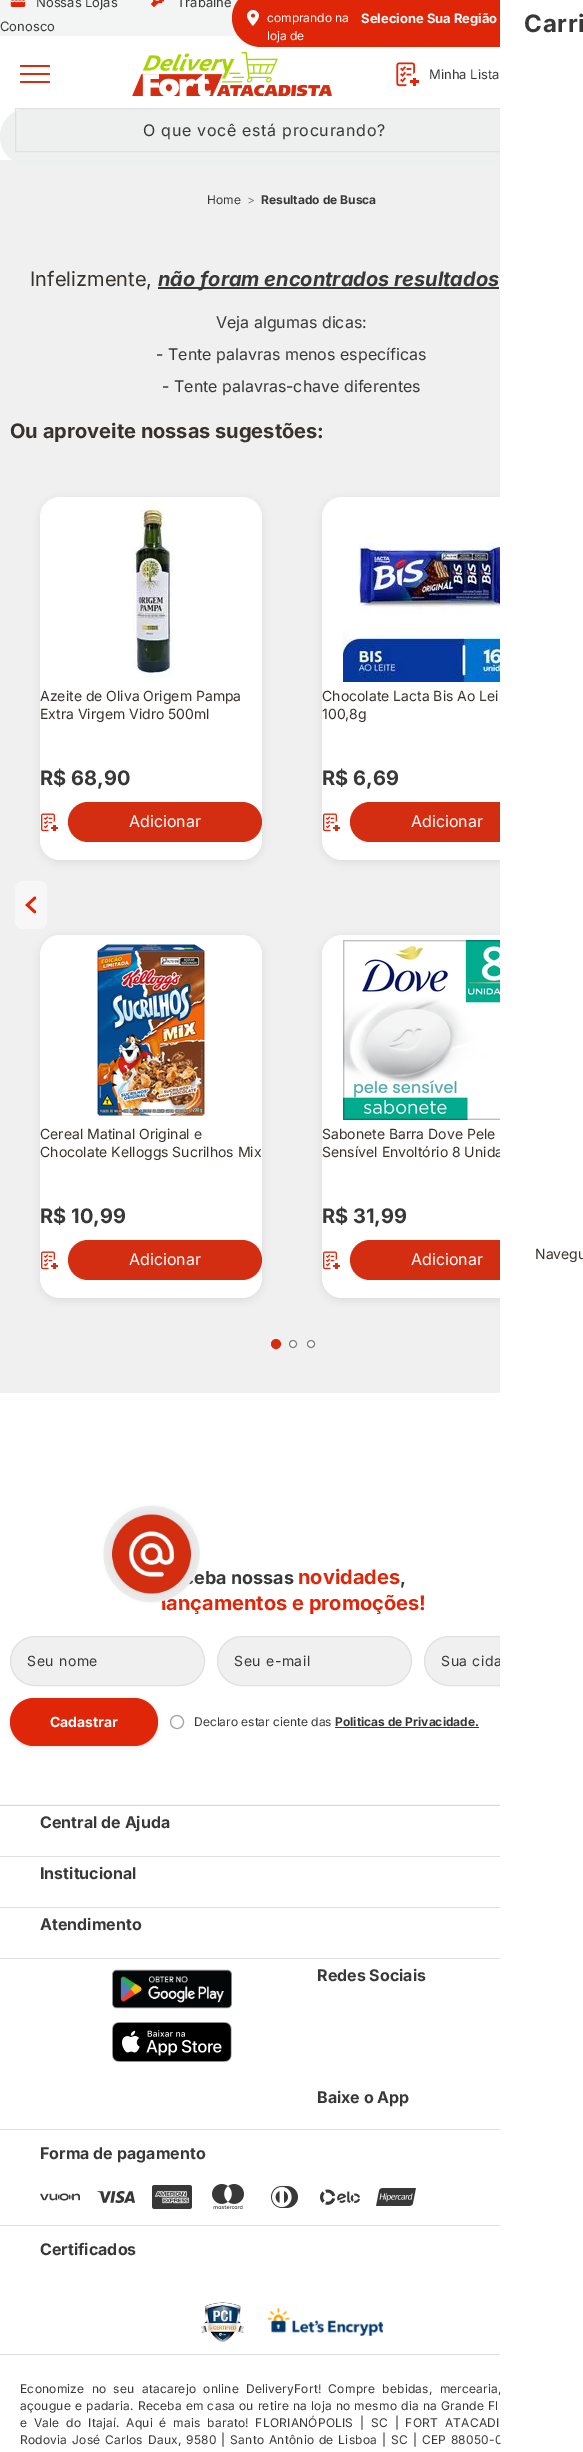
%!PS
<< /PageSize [583 2452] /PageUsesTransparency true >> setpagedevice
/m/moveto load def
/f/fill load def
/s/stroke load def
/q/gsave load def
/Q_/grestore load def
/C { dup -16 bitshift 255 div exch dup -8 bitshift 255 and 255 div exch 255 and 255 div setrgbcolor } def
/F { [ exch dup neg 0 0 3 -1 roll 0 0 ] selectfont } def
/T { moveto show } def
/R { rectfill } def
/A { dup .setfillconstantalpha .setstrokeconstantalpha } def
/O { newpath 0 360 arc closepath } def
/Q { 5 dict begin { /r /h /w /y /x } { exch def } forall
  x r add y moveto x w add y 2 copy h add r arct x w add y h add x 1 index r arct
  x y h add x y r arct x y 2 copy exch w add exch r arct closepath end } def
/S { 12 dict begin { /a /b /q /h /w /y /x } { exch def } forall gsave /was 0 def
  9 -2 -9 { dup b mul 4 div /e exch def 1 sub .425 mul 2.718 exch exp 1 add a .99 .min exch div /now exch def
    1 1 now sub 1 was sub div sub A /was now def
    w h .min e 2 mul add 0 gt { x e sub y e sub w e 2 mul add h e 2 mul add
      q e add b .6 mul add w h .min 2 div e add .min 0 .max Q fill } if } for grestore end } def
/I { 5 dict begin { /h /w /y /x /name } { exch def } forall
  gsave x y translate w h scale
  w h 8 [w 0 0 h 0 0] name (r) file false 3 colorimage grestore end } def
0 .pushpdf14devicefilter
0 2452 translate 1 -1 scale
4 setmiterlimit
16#FFFFFF C
0 0 583 2452 R
16#F2F5F4 C
0 0 239 36 R
(1.rgb) 10 0 16 7 I
/Inter-Regular 13 F
16#383838 C
(Nossas Lojas) 36 7 T
(2.rgb) 151 0 13 7 I
(Trabalhe) 177 7 T
(Conosco) 0 31 T
16#E02609 C
232 -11 351 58 29 Q f
(3.rgb) 247 10 12 16 I
/Inter-Regular 12 F
16#FFFFFF C
(comprando na) 267 22 T
(loja de) 267 40 T
/Inter-Bold 13 F
(Selecione Sua Região) 361 23 T
16#D42E12 C
20 73 30 2 1 Q f
20 65 30 2 1 Q f
20 81 30 2 1 Q f
(4.rgb) 132 52 200 44 I
(5.rgb) 396 62 23 25 I
/Inter-Regular 13 F
16#383838 C
(Minha Lista) 429 79 T
16#F0F0F0 C
0 160 500 1233 R
16#EDF0EF C
0 108 583 57 28.5 Q f
16#E0E0E0 C
15.5 108.5 552 43 rectstroke
16#000000 C
322 499 222 363 20 4 .08 S
16#FFFFFF C
322 497 222 363 20 Q f
16#D42E12 C
350 802 194 40 20 Q f
16#000000 C
322 937 222 363 20 4 .08 S
16#FFFFFF C
322 935 222 363 20 Q f
/Inter-Regular 14 F
16#37322D C
(Sensível Envoltório 8 Unida) 322 1157 T
16#D42E12 C
350 1240 194 40 20 Q f
16#F0F0F0 C
424.5 1636.5 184 49 24.5 Q q f Q_
16#E0E0E0 C
s
16#383838 C
441 1666 m .6 0 (Sua cida) ashow
/Inter-Regular 12 F
20 2393 m 3.5 0 32 .22 0 (Economize no seu atacarejo online DeliveryFort! Compre bebidas, mercearia,) awidthshow
20 2444 m 1.2 0 32 .22 0 (Rodovia José Carlos Daux, 9580 | Santo Antônio de Lisboa | SC | CEP 88050-0) awidthshow
16#FFFFFF C
500 0 83 2443 R
/Inter-Bold 24 F
16#383838 C
524 32 m .75 0 (Carri) ashow
/Inter-Regular 14 F
16#37322D C
(Navegu) 535 1259 T
/Inter-Regular 16 F
16#383838 C
143 136 m .7 0 (O que você está procurando?) ashow
/Inter-Regular 12 F
(Home) 207 204 T
16#808080 C
(>) 247 204 T
/Inter-Bold 12 F
16#383838 C
(Resultado de Busca) 261 204 T
/Inter-Regular 20 F
16#37322D C
(Infelizmente,) 30 286 T
16#383838 C
158 287 341 2 R
/Inter-BoldItalic 20 F
(não foram encontrados resultados) 158 286 T
/Inter-Regular 16 F
(Veja algumas dicas:) 216 328 T
(- Tente palavras menos específicas) 156 360 T
(- Tente palavras-chave diferentes) 162 392 T
/Inter-Bold 20 F
16#37322D C
(Ou aproveite nossas sugestões:) 10 438 T
16#000000 C
40 937 222 363 20 4 .08 S
16#F7F7F7 C
15 881 32 48 8 Q f
(6.rgb) 25 896 12 18 I
16#000000 C
40 499 222 363 20 4 .08 S
16#FFFFFF C
40 497 222 363 20 Q f
(7.rgb) 130 502 43 176 I
/Inter-Regular 14 F
16#37322D C
(Azeite de Oliva Origem Pampa) 40 701 T
(Extra Virgem Vidro 500ml) 40 719 T
/Inter-Bold 20 F
16#383838 C
(R$ 68,90) 40 785 T
(8.rgb) 41 813 17 19 I
16#D42E12 C
68 802 194 40 20 Q f
/Inter-Regular 16 F
16#FFFFFF C
(Adicionar) 129 827 T
40 935 222 363 20 Q f
(9.rgb) 97 944 108 172 I
/Inter-Regular 14 F
16#37322D C
(Cereal Matinal Original e) 40 1139 T
(Chocolate Kelloggs Sucrilhos Mix) 40 1157 T
/Inter-Bold 20 F
16#383838 C
(R$ 10,99) 40 1223 T
(8.rgb) 41 1251 17 19 I
16#D42E12 C
68 1240 194 40 20 Q f
/Inter-Regular 16 F
16#FFFFFF C
(Adicionar) 129 1265 T
(10.rgb) 343 536 157 146 I
/Inter-Regular 14 F
16#37322D C
(Chocolate Lacta Bis Ao Lei) 322 701 T
(100,8g) 322 719 T
/Inter-Bold 20 F
16#383838 C
(R$ 6,69) 322 785 T
(8.rgb) 323 813 17 19 I
/Inter-Regular 16 F
16#FFFFFF C
(Adicionar) 411 827 T
(11.rgb) 343 940 157 180 I
/Inter-Regular 14 F
16#37322D C
(Sabonete Barra Dove Pele) 322 1139 T
/Inter-Bold 20 F
16#383838 C
(R$ 31,99) 322 1223 T
(8.rgb) 323 1251 17 19 I
/Inter-Regular 16 F
16#FFFFFF C
(Adicionar) 411 1265 T
16#D42E12 C
276 1344 4.5 O q f Q_
s
16#FFFFFF C
293 1344 3.5 O q f Q_
16#808080 C
s
16#FFFFFF C
311 1344 3.5 O q f Q_
16#808080 C
s
16#F7F7F7 C
0 1804 500 1 R
/Inter-Bold 18 F
16#383838 C
(eba nossas) 194 1584 T
/Inter-Bold 20 F
16#E02609 C
(lançamentos e promoções!) 161 1610 T
(12.rgb) 103 1505 97 98 I
(novidades) 298 1584 T
/Inter-Bold 18 F
16#383838 C
(,) 400 1584 T
16#F0F0F0 C
10.5 1636.5 194 49 24.5 Q q f Q_
16#E0E0E0 C
s
/Inter-Regular 14 F
16#383838 C
27 1666 m .6 0 (Seu nome) ashow
16#F0F0F0 C
217.5 1636.5 194 49 24.5 Q q f Q_
16#E0E0E0 C
s
16#383838 C
234 1666 m .6 0 (Seu e-mail) ashow
16#2C2738 C
10 1700 148 48 24 2 .08 S
16#E02609 C
10 1698 148 48 24 Q f
/Inter-Bold 14 F
16#FFFFFF C
(Cadastrar) 50 1727 T
16#A3A3A3 C
177 1722 6.5 O s
/Inter-Regular 12 F
16#383838 C
(Declaro estar ciente das) 194 1726 T
/Inter-Bold 12 F
(Politicas de Privacidade.) 335 1726 T
335 1727 144 1 R
16#D9D9D9 C
0 1805 500 1 R
16#E0E0E0 C
0 1856 500 1 R
/Inter-Bold 16 F
16#383838 C
(Central de Ajuda) 40 1828 T
16#E0E0E0 C
0 1907 500 1 R
16#383838 C
(Institucional) 40 1879 T
16#E0E0E0 C
0 1958 500 1 R
16#383838 C
(Atendimento) 40 1930 T
16#E0E0E0 C
0 2129 500 1 R
(13.rgb) 112 1969 120 40 I
(14.rgb) 112 2022 120 40 I
16#383838 C
(Redes Sociais) 317 1981 T
(Baixe o App) 317 2103 T
16#E0E0E0 C
0 2225 500 1 R
16#383838 C
(Forma de pagamento) 40 2159 T
(15.rgb) 40 2193 40 8 I
(16.rgb) 97 2191 38 12 I
(17.rgb) 152 2185 40 24 I
(18.rgb) 212 2184 32 25 I
(19.rgb) 271 2186 27 22 I
(20.rgb) 320 2189 40 16 I
(21.rgb) 376 2188 40 18 I
16#E0E0E0 C
0 2354 500 1 R
16#383838 C
(Certificados) 40 2255 T
(22.rgb) 201 2302 43 40 I
(23.rgb) 268 2308 115 28 I
/Inter-Regular 12 F
20 2410 m .4 0 32 .22 0 (açougue e padaria. Receba em casa ou retire na loja no mesmo dia na Grande Fl) awidthshow
20 2427 m 3.1 0 32 .22 0 (e Vale do Itajaí. Aqui é mais barato! FLORIANÓPOLIS | SC | FORT ATACADI) awidthshow
.poppdf14devicefilter showpage
